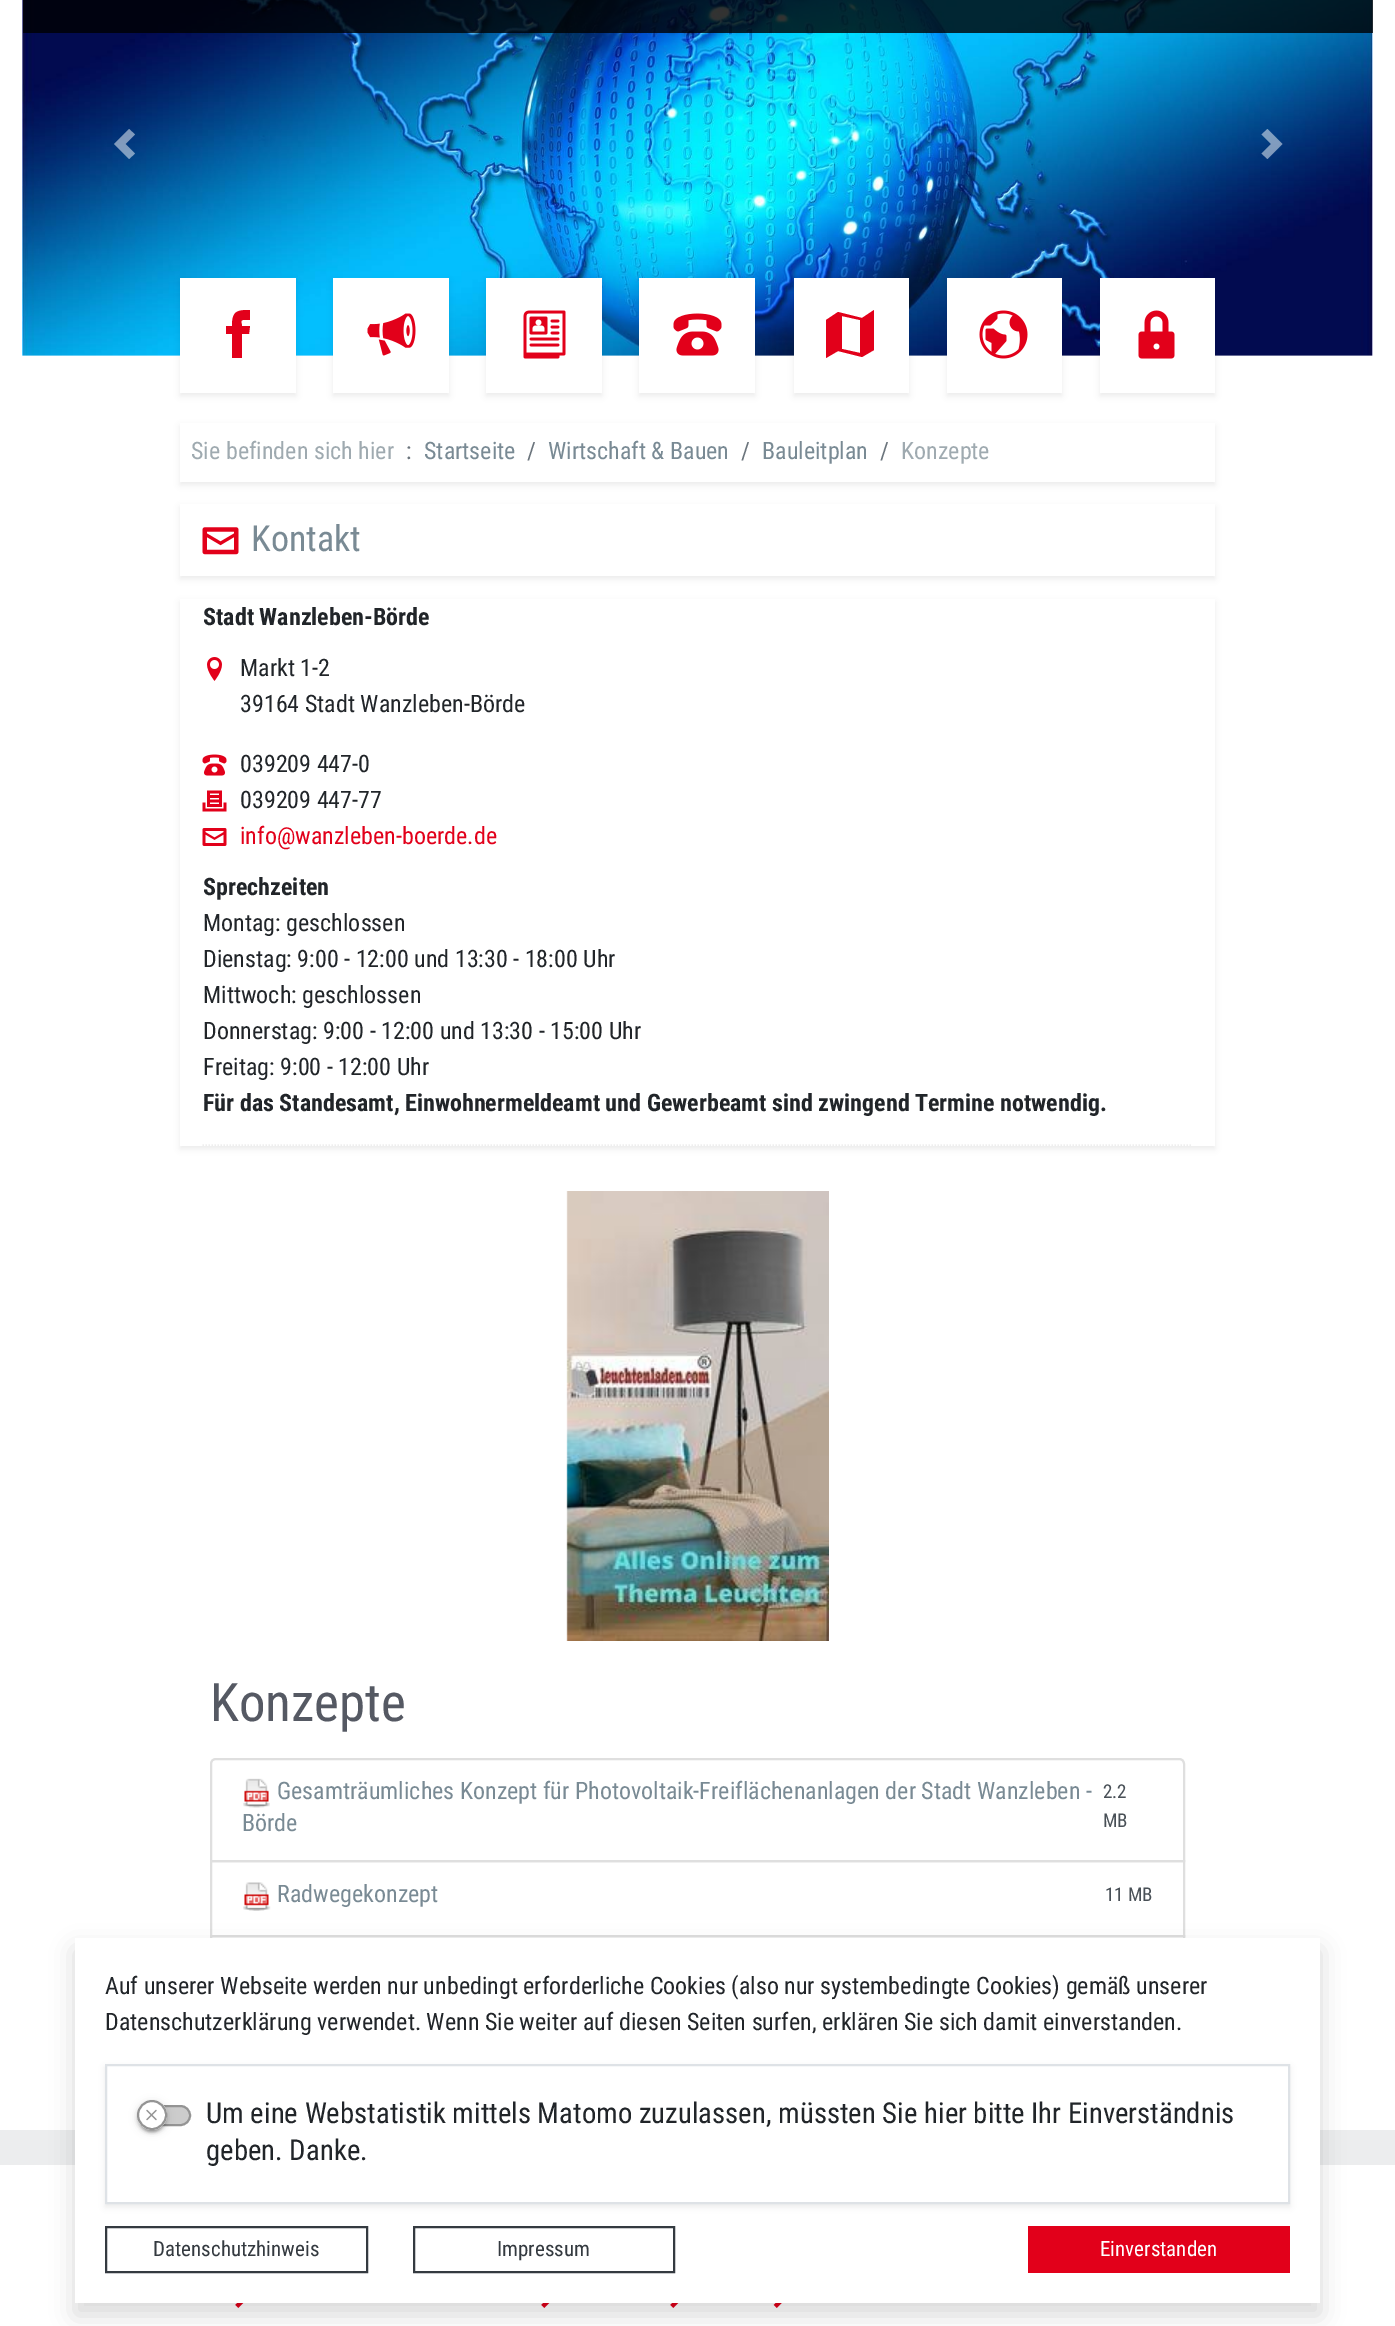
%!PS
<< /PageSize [1395 2326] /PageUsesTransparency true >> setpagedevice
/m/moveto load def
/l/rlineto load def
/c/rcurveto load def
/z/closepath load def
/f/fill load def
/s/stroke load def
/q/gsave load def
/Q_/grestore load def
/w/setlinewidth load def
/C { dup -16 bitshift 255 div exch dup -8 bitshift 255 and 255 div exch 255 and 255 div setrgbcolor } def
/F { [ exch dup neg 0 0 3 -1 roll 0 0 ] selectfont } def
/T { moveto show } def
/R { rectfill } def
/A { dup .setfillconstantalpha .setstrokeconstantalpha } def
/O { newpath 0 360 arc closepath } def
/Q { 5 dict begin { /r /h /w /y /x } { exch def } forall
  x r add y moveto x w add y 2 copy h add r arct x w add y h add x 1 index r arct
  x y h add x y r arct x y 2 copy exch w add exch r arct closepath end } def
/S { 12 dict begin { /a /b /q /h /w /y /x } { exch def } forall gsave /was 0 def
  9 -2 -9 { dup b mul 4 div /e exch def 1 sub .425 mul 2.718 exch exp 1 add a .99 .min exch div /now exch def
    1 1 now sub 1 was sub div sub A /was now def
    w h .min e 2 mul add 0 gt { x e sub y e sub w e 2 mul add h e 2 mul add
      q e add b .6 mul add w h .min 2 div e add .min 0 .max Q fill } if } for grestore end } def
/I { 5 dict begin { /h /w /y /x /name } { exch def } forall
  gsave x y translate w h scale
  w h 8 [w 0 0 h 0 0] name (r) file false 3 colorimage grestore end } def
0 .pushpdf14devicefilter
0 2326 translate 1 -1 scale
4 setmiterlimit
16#FFFFFF C
0 0 1395 2326 R
(1.rgb) 22 0 1351 356 I
0.8 A
16#000000 C
23 0 1350 33 R
0.5 A
16#FFFFFF C
129 129 m -15 15 l 15 15 l 6 -5.5 l -9.5 -9.5 l 9.5 -9.5 l z f
1267.5 129 m -6 5.5 l 9.5 9.5 l -9.5 9.5 l 6 5.5 l 15 -15 l z f
1 A
180 278 116 78 R
q
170 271 m 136 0 l 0 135 l -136 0 l z 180 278 m 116 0 l 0 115 l -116 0 l z eoclip newpath
16#000000 C
180 281 116 115 0 3 .07 S
Q_
16#E2001A C
243 320 m 7 0 l 0 -10 l -13 0 -18 1 -18 16 c -6 0 l 0 8 l 6 0 l 0 24 l 10 0 l 0 -24 l 7 0 l 1 -8 l -8 0 l 0 -2 -2 -6 1 -6 c z f
16#FFFFFF C
333 278 116 78 R
q
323 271 m 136 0 l 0 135 l -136 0 l z 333 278 m 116 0 l 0 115 l -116 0 l z eoclip newpath
16#000000 C
333 281 116 115 0 3 .07 S
Q_
(2.rgb) 367 313 49 43 I
486 278 116 78 R
q
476 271 m 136 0 l 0 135 l -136 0 l z 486 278 m 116 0 l 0 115 l -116 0 l z eoclip newpath
16#000000 C
486 281 116 115 0 3 .07 S
Q_
(3.rgb) 523 310 43 49 I
639 278 116 78 R
q
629 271 m 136 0 l 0 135 l -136 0 l z 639 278 m 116 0 l 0 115 l -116 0 l z eoclip newpath
16#000000 C
639 281 116 115 0 3 .07 S
Q_
(4.rgb) 673 313 49 43 I
794 278 115 78 R
q
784 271 m 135 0 l 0 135 l -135 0 l z 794 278 m 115 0 l 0 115 l -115 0 l z eoclip newpath
16#000000 C
794 281 115 115 0 3 .07 S
Q_
16#E2001A C
862 318 m -24 -6 l -12 8 l 0 38 l 12 -7 l 24 6 l 12 -7 l 0 -40 l z 860 353 m -18 -4 l 0 -33 l 18 4 l z f
16#FFFFFF C
947 278 115 78 R
q
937 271 m 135 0 l 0 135 l -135 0 l z 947 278 m 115 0 l 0 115 l -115 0 l z eoclip newpath
16#000000 C
947 281 115 115 0 3 .07 S
Q_
(5.rgb) 979 310 49 49 I
1100 278 115 78 R
q
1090 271 m 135 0 l 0 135 l -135 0 l z 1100 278 m 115 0 l 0 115 l -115 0 l z eoclip newpath
16#000000 C
1100 281 115 115 0 3 .07 S
Q_
(6.rgb) 1138 310 37 49 I
16#000000 C
180 426 1035 59 0 3 .07 S
16#FFFFFF C
180 423 1035 59 R
/RobotoCondensed-Regular 24 F
16#9FAAB0 C
(Sie befinden sich hier) 191 459 T
16#6C757D C
(:) 406 459 T
16#798A94 C
(Startseite) 424 459 T
16#6C757D C
(/) 527 459 T
16#798A94 C
(Wirtschaft & Bauen) 548 459 T
16#6C757D C
(/) 741 459 T
16#798A94 C
(Bauleitplan) 762 459 T
16#6C757D C
(/) 880 459 T
16#9FAAB0 C
(Konzepte) 901 459 T
q
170 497 m 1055 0 l 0 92 l -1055 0 l z 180 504 m 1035 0 l 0 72 l -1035 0 l z eoclip newpath
16#000000 C
180 507 1035 72 0 3 .07 S
Q_
(7.rgb) 202 527 37 28 I
/RobotoCondensed-Regular 36 F
16#798A94 C
(Kontakt) 251 551 T
q
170 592 m 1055 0 l 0 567 l -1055 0 l z 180 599 m 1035 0 l 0 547 l -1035 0 l z eoclip newpath
16#000000 C
180 602 1035 547 0 3 .07 S
Q_
16#EEEEEE C
1.5 w
[1.5 1.5] 0 setdash
202.5 1145 m 990 0 l s
/RobotoCondensed-Bold 24 F
16#212529 C
(Stadt Wanzleben-Börde) 203 625 T
(8.rgb) 207 657 15 24 I
/RobotoCondensed-Regular 24 F
(Markt 1-2) 240 676 T
(39164 Stadt Wanzleben-Börde) 240 712 T
(9.rgb) 202 754 25 22 I
(039209 447-0) 240 772 T
(10.rgb) 202 790 25 22 I
(039209 447-77) 240 808 T
(11.rgb) 202 828 25 18 I
16#E2001A C
(info@wanzleben-boerde.de) 240 844 T
/RobotoCondensed-Bold 24 F
16#212529 C
(Sprechzeiten) 203 895 T
/RobotoCondensed-Regular 24 F
(Montag: geschlossen) 203 931 T
(Dienstag: 9:00 - 12:00 und 13:30 - 18:00 Uhr) 203 967 T
(Mittwoch: geschlossen) 203 1003 T
(Donnerstag: 9:00 - 12:00 und 13:30 - 15:00 Uhr) 203 1039 T
(Freitag: 9:00 - 12:00 Uhr) 203 1075 T
/RobotoCondensed-Bold 24 F
(Für das Standesamt, Einwohnermeldeamt und Gewerbeamt sind zwingend Termine notwendig.) 203 1111 T
(12.rgb) 566 1191 263 450 I
/RobotoCondensed-Regular 53 F
16#555963 C
(Konzepte) 210 1721 T
16#DFDFDF C
2 w
[] 0 setdash
216 1759 m 963 0 l 3 0 5 2 5 5 c 0 97 l -973 0 l 0 -97 l 0 -3 2 -5 5 -5 c z s
(13.rgb) 243 1778 27 30 I
/RobotoCondensed-Regular 24 F
16#798A94 C
(Gesamträumliches Konzept für Photovoltaik-Freiflächenanlagen der Stadt Wanzleben -) 277 1799 T
(Börde) 242 1831 T
/RobotoCondensed-Regular 19 F
16#495057 C
(2.2) 1103 1798 T
(MB) 1103 1827 T
16#DFDFDF C
211 1861 973 75 rectstroke
(14.rgb) 243 1882 28 29 I
/RobotoCondensed-Regular 24 F
16#798A94 C
(Radwegekonzept) 277 1902 T
/RobotoCondensed-Regular 19 F
16#495057 C
(11 MB) 1105 1901 T
16#DFDFDF C
211 1936 973 73 rectstroke
16#ECEDEE C
0 2130 1395 35 R
(15.rgb) 235 2303 9 5 I
(15.rgb) 541 2303 9 5 I
(15.rgb) 670 2303 9 5 I
(16.rgb) 773 2303 9 5 I
16#000000 C
75 1950 1245 365 0 12 .15 S
16#FFFFFF C
75 1938 1245 365 R
/RobotoCondensed-Regular 24 F
16#212529 C
(Auf unserer Webseite werden nur unbedingt erforderliche Cookies \(also nur systembedingte Cookies\) gemäß unserer) 105 1994 T
(Datenschutzerklärung verwendet. Wenn Sie weiter auf diesen Seiten surfen, erklären Sie sich damit einverstanden.) 105 2030 T
q
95 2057 m 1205 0 l 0 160 l -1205 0 l z 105 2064 m 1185 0 l 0 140 l -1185 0 l z eoclip newpath
16#000000 C
105 2067 1185 140 0 3 .07 S
Q_
16#DEE2E6 C
106 2065 1183 138 rectstroke
16#CCCCCC C
138 2106 52 19 9.5 Q q f Q_
16#949494 C
s
16#000000 C
137 2102 30 30 15 4 .12 S
137 2103 30 30 15 1.5 .14 S
140 2108 24 24 12 1 .2 S
16#FFFFFF C
152 2115 15 O f
(17.rgb) 146 2109 11 12 I
16#949494 C
152 2115 14 O s
/RobotoCondensed-Regular 28.8 F
16#212529 C
(Um eine Webstatistik mittels Matomo zuzulassen, müssten Sie hier bitte Ihr Einverständnis) 206 2123 T
(geben. Danke.) 206 2160 T
16#343A40 C
106 2227 261 45 rectstroke
/RobotoCondensed-Regular 21 F
(Datenschutzhinweis) 153 2256 T
414 2227 260 45 rectstroke
(Impressum) 497 2256 T
16#E2001A C
1028 2226 262 47 R
16#FFFFFF C
(Einverstanden) 1100 2256 T
.poppdf14devicefilter showpage
